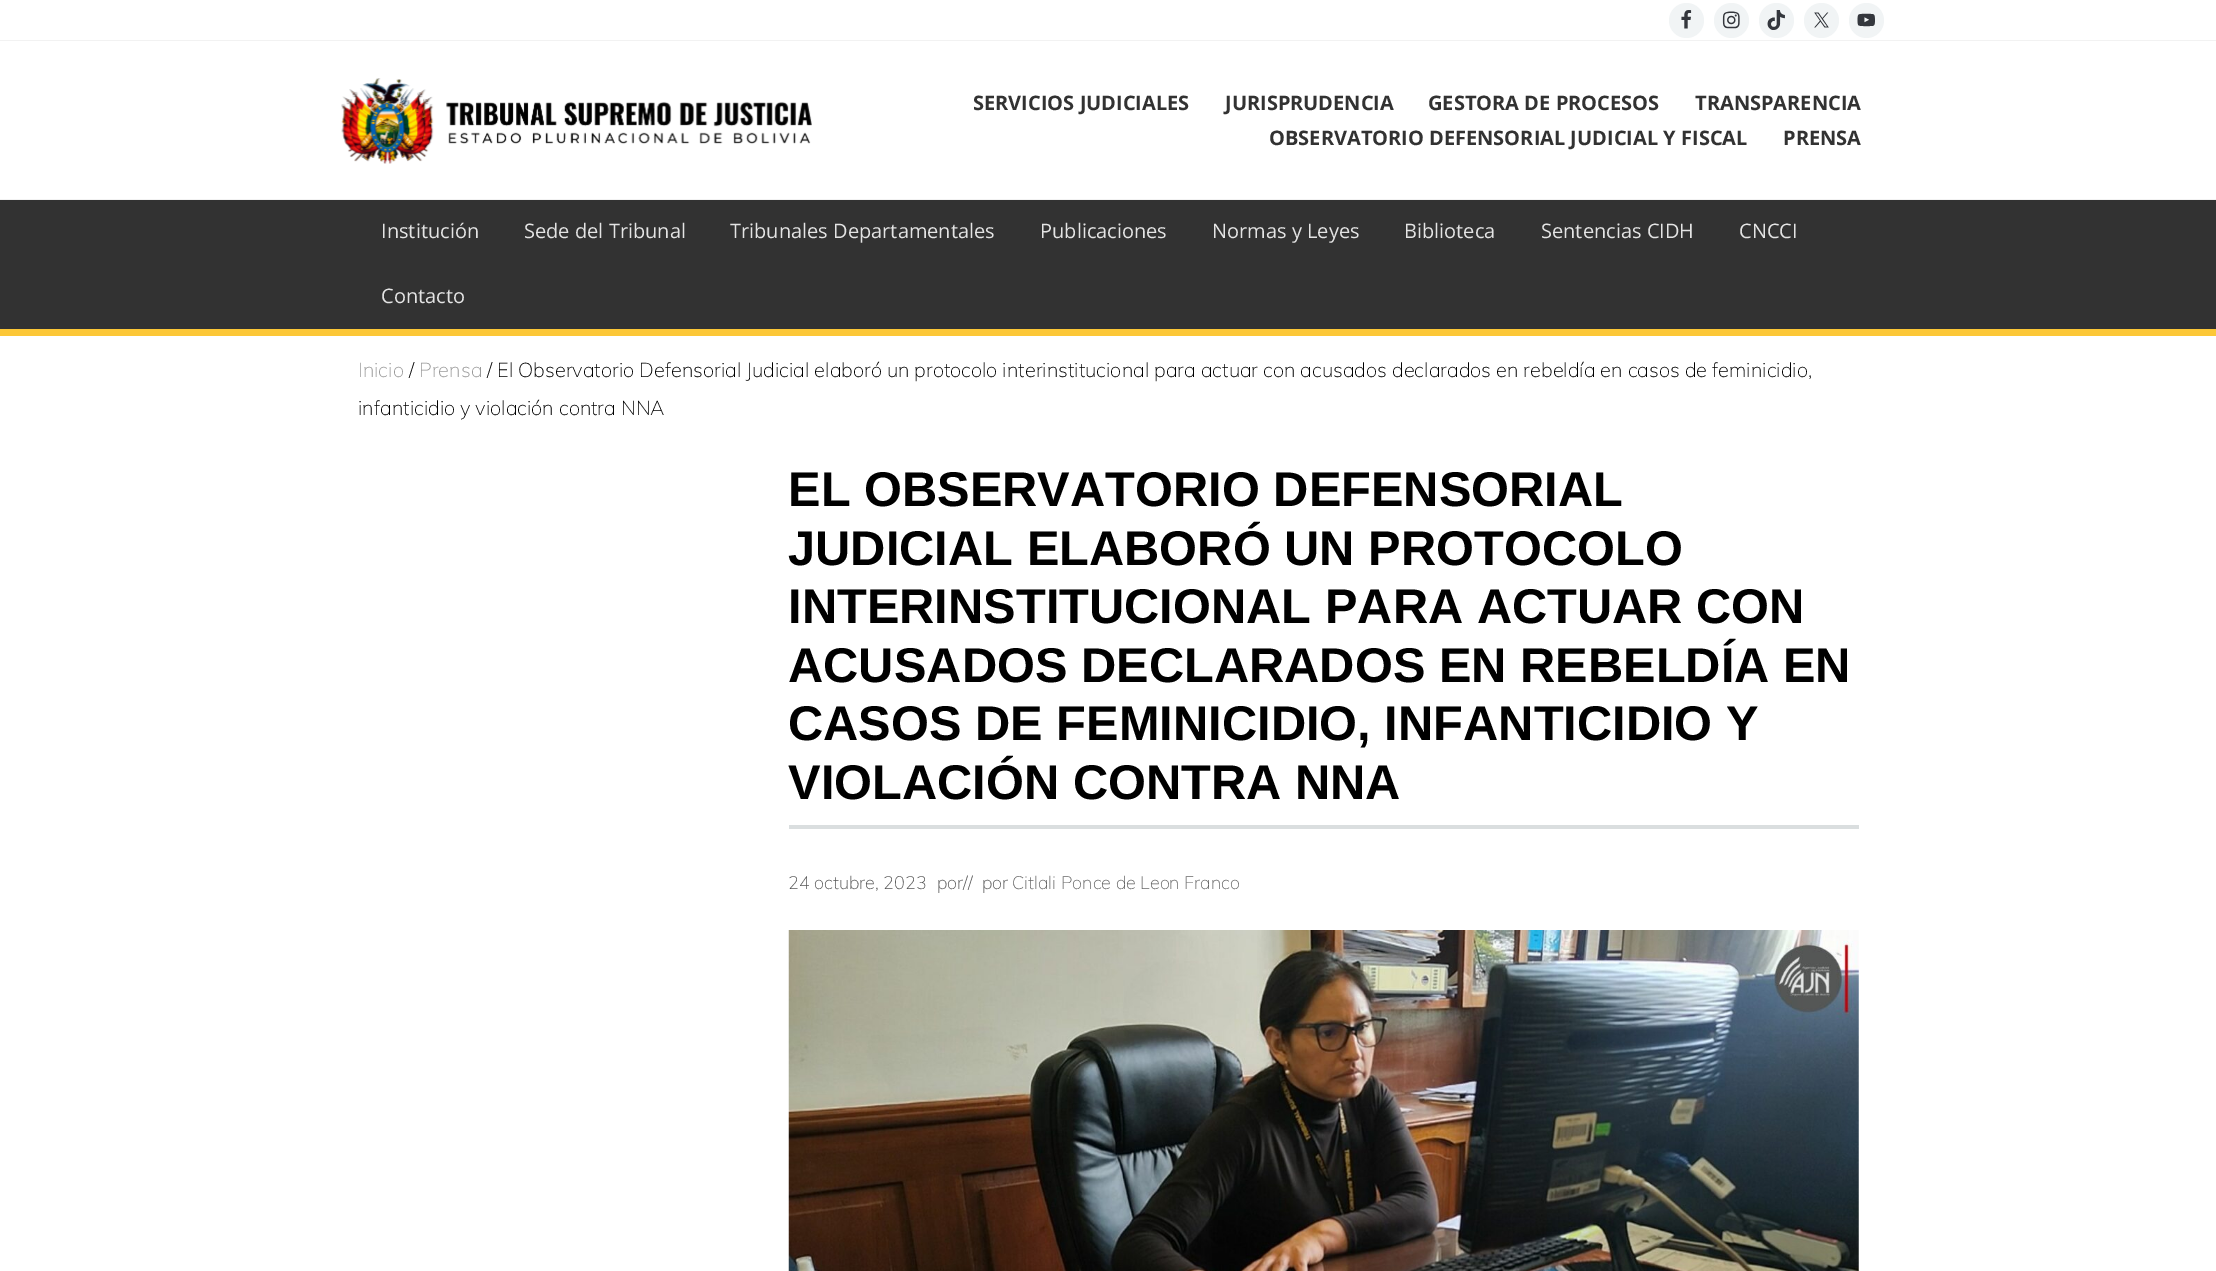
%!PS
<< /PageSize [2216 1271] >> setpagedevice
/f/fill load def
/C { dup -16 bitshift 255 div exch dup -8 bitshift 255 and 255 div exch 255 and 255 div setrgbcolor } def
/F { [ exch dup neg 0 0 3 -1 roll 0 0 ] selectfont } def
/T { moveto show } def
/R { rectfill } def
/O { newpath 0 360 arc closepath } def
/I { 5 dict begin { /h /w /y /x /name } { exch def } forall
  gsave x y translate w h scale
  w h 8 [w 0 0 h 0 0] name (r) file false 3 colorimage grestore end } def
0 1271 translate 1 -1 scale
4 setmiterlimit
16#FFFFFF C
0 0 2216 1271 R
16#F2F2F2 C
0 40 2216 1 R
16#F1F4F5 C
1686.5 20.5 17.5 O f
(1.rgb) 1681 10 11 19 I
1731.5 20.5 17.5 O f
(2.rgb) 1722 11 18 18 I
1776.5 20.5 17.5 O f
(3.rgb) 1767 10 18 20 I
1821.5 20.5 17.5 O f
(4.rgb) 1814 12 15 16 I
1866.5 20.5 17.5 O f
(5.rgb) 1857 13 18 14 I
16#F2F2F2 C
0 199 2216 1 R
(6.rgb) 341 78 471 86 I
/OpenSans-Bold 20 F
16#323232 C
(SERVICIOS JUDICIALES) 973 110 T
(JURISPRUDENCIA) 1225 110 T
(GESTORA DE PROCESOS) 1428 110 T
(TRANSPARENCIA) 1695 110 T
(OBSERVATORIO DEFENSORIAL JUDICIAL Y FISCAL) 1269 145 T
(PRENSA) 1783 145 T
0 200 2216 129 R
16#FCC737 C
0 329 2216 7 R
/OpenSans-Regular 20 F
16#E4E4E4 C
(Institución) 381 238 T
(Sede del Tribunal) 524 238 T
(Tribunales Departamentales) 730 238 T
(Publicaciones) 1040 238 T
(Normas y Leyes) 1212 238 T
(Biblioteca) 1404 238 T
(Sentencias CIDH) 1541 238 T
(CNCCI) 1739 238 T
(Contacto) 381 303 T
/Muli-ExtraLight 20 F
16#999999 C
(Inicio) 358 377 T
16#000000 C
(/) 409 377 T
16#999999 C
(Prensa) 419 377 T
16#000000 C
(/ El Observatorio Defensorial Judicial elaboró un protocolo interinstitucional para actuar con acusados declarados en rebeldía en casos de feminicidio,) 487 377 T
(infanticidio y violación contra NNA) 358 415 T
16#DADEDF C
789 825 1070 4 R
/LiberationSans-Bold 48.8 F
16#000000 C
(EL OBSERVATORIO DEFENSORIAL) 788 506 T
(JUDICIAL ELABORÓ UN PROTOCOLO) 788 565 T
(INTERINSTITUCIONAL PARA ACTUAR CON) 788 623 T
(ACUSADOS DECLARADOS EN REBELDÍA EN) 788 682 T
(CASOS DE FEMINICIDIO, INFANTICIDIO Y) 788 740 T
(VIOLACIÓN CONTRA NNA) 788 799 T
/Muli-ExtraLight 18 F
16#555555 C
(24 octubre, 2023) 788 889 T
(por//  por) 937 889 T
16#666666 C
(Citlali Ponce de Leon Franco) 1012 889 T
(7.rgb) 788 930 1071 341 I
showpage
